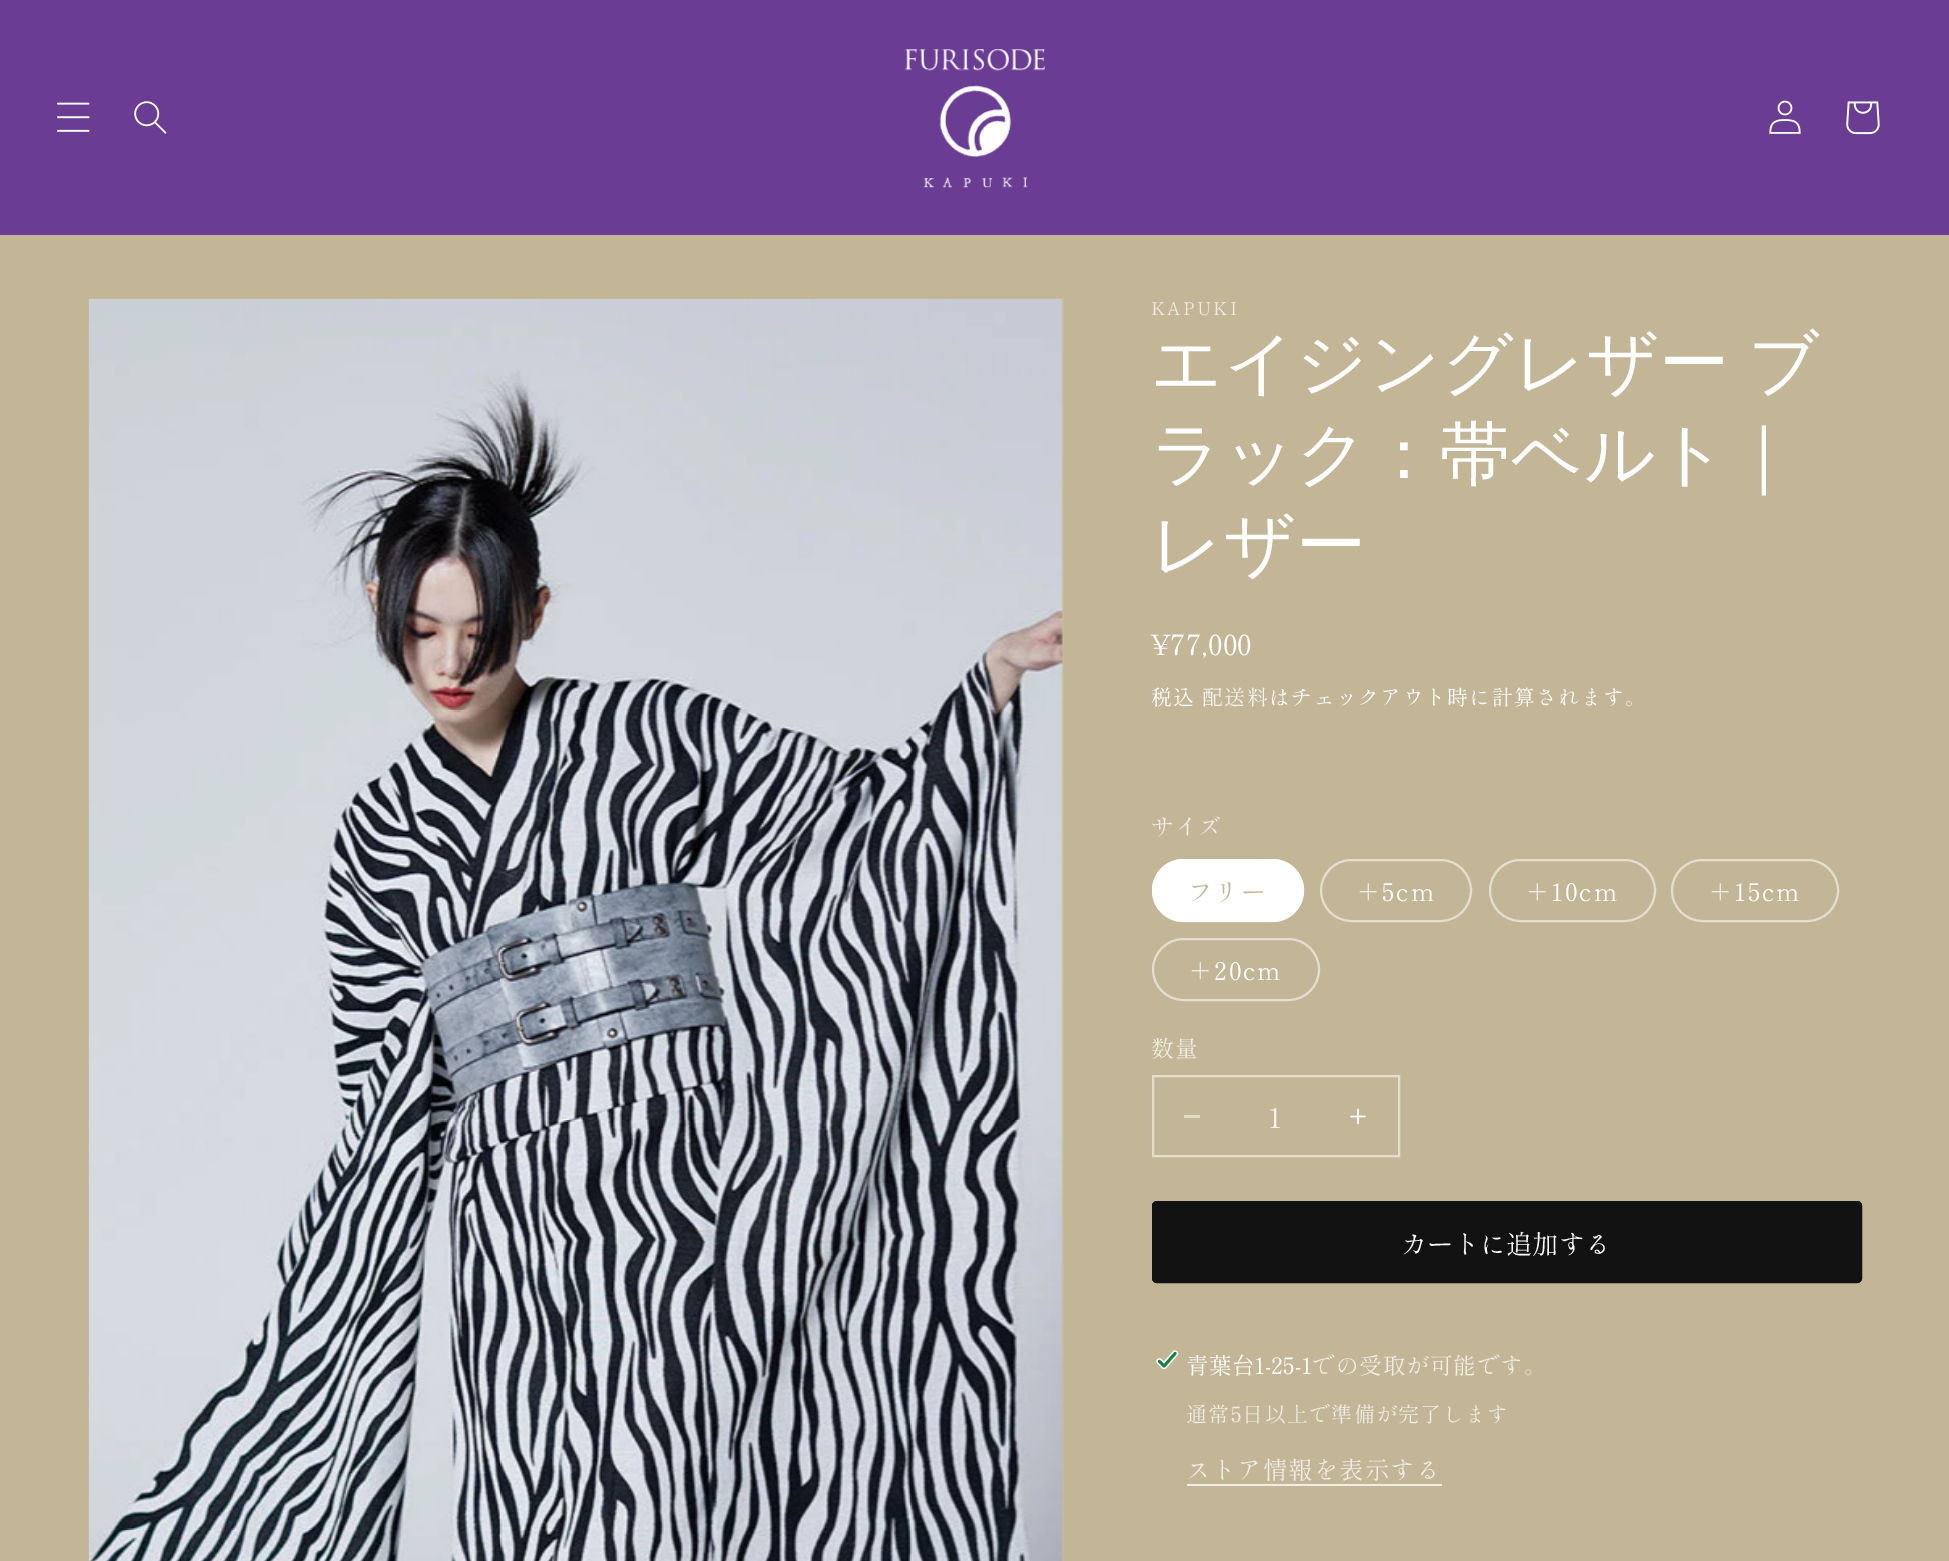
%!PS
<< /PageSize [1949 1561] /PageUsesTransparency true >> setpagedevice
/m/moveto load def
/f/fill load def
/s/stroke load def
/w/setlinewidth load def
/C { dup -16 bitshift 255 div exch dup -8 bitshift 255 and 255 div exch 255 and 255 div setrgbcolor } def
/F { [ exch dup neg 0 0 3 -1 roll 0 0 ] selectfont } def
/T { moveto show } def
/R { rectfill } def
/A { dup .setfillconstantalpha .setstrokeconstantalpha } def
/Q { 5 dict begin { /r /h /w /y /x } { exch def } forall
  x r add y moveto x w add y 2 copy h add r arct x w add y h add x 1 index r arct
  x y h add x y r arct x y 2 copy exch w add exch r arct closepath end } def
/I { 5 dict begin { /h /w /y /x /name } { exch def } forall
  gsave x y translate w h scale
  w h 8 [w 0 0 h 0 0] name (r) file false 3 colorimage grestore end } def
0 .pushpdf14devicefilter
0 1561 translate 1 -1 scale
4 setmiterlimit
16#C2B697 C
0 0 1949 1561 R
16#6B3C93 C
0 0 1949 235 R
(1.rgb) 57 102 33 30 I
(2.rgb) 134 101 33 33 I
(3.rgb) 904 49 141 139 I
(4.rgb) 1769 100 32 34 I
(5.rgb) 1846 101 34 34 I
16#C5BA9C C
2 w
89 299 974 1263 rectstroke
(6.rgb) 89 299 974 1262 I
/ShipporiMincho-Regular 17.5 F
16#F0EDE5 C
1151 315 m 2.25 0 (KAPUKI) ashow
/WenQuanYiZenHei-Medium 70 F
16#FFFFFF C
1151 387 m -4 0 32 1 0 (エイジングレザー ブ) awidthshow
1151 478 m 1 0 (ラック：帯ベルト｜) ashow
1151 569 m 1 0 (レザー) ashow
/ShipporiMincho-Regular 28 F
(¥77,000) 1151 655 T
/ShipporiMincho-Regular 21 F
1151 705 m 1.25 0 (税込) ashow
16#F6F4EF C
1202 705 m 1.25 0 (配送料) ashow
16#FFFFFF C
1269 705 m 1.25 0 (はチェックアウト時に計算されます。) ashow
/ShipporiMincho-Regular 22.75 F
16#F0EDE5 C
1151 835 m .75 0 (サイズ) ashow
16#FFFFFF C
1152 859 152 63 31.5 Q f
0.55 A
1153 860 150 61 30.5 Q s
/ShipporiMincho-Regular 24.5 F
1 A
16#C2B697 C
1188 901 m 1.75 0 (フリー) ashow
16#E4DED0 C
1321 860 150 61 30.5 Q s
16#FFFFFF C
1356 901 m 1.75 0 (＋5cm) ashow
16#E4DED0 C
1490 860 165 61 30.5 Q s
16#FFFFFF C
1525 901 m 1.75 0 (＋10cm) ashow
16#E4DED0 C
1672 860 166 61 30.5 Q s
16#FFFFFF C
1708 901 m 1.75 0 (＋15cm) ashow
16#E4DED0 C
1153 939 166 61 30.5 Q s
16#FFFFFF C
1188 980 m 1.75 0 (＋20cm) ashow
/ShipporiMincho-Regular 22.75 F
16#F0EDE5 C
1151 1057 m .75 0 (数量) ashow
16#E1DBCB C
1184 1115 16 3 R
(7.rgb) 1350 1108 16 17 I
16#E4DED0 C
1153 1076 246 80 rectstroke
/ShipporiMincho-Regular 28 F
16#F6F4EF C
(1) 1268 1128 T
16#121212 C
1152 1201 710 82 5 Q f
1153 1202 708 80 4 Q s
/ShipporiMincho-Regular 26.25 F
16#FFFFFF C
(カートに追加する) 1401 1254 T
(8.rgb) 1156 1350 23 20 I
/ShipporiMincho-Regular 22.75 F
(青葉台1-25-1) 1186 1374 T
16#F0EDE5 C
1312 1374 m .75 0 (での受取が可能です。) ashow
/ShipporiMincho-Regular 21 F
1186 1422 m 1.25 0 (通常5日以上で準備が完了します) ashow
/ShipporiMincho-Regular 24.5 F
1186 1479 m 1 0 (ストア情報を表示する) ashow
1187 1484 255 2 R
.poppdf14devicefilter showpage
